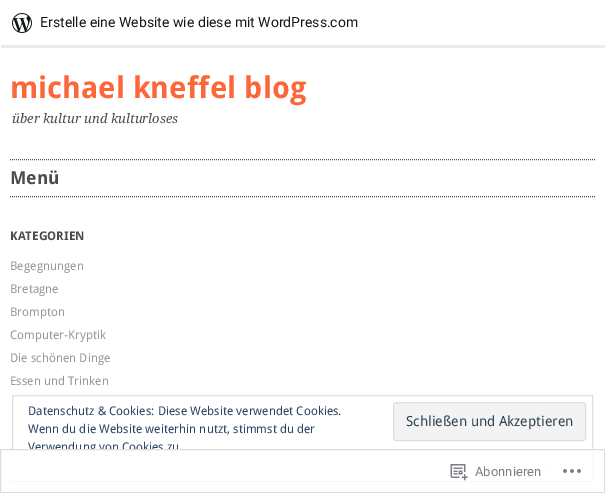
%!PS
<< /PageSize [605 493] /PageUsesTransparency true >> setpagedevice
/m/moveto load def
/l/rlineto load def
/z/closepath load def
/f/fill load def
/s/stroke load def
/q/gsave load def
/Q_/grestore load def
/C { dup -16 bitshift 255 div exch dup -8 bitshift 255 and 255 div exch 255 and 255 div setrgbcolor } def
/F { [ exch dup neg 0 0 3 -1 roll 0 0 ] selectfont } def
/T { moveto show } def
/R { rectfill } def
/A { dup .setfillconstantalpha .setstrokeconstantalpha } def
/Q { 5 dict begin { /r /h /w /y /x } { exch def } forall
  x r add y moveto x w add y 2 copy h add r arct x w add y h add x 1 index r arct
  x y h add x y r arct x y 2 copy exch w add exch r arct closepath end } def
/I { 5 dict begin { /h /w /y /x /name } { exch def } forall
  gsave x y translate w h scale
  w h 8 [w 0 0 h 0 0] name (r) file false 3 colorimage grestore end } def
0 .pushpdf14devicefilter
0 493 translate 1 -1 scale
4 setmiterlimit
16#FFFFFF C
0 0 605 493 R
0.08 A
16#000000 C
1 45 m 0 3 l 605 0 l 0 -45 l -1 0 l 0 42 l z f
1 A
(1.rgb) 12 13 20 20 I
/Roboto-Regular 14 F
16#171717 C
(Erstelle eine Website wie diese mit WordPress.com) 40 27 T
/DroidSans-Bold 30 F
16#FC673A C
(michael kneffel blog) 10 98 T
/DroidSerif-Italic 13 F
16#4C4C4C C
(über kultur und kulturloses) 12 123 T
[1 1] 0 setdash
10 196.5 m 585 0 l s
10 159.5 m 585 0 l s
/DroidSans-Bold 18 F
(Menü) 10 184 T
/DroidSans-Bold 12 F
(KATEGORIEN) 10 240 T
/DroidSans-Regular 12 F
16#999999 C
(Begegnungen) 10 270 T
(Bretagne) 10 293 T
(Brompton) 10 316 T
(Computer-Kryptik) 10 339 T
(Die schönen Dinge) 10 362 T
(Essen und Trinken) 10 385 T
16#DEDEDE C
[] 0 setdash
12.5 395.5 580 85 rectstroke
16#2E4467 C
(Datenschutz & Cookies: Diese Website verwendet Cookies.) 28 415 T
(Wenn du die Website weiterhin nutzt, stimmst du der) 28 433 T
16#F3F3F3 C
393.5 402.5 192 38 2.5 Q q f Q_
16#DEDEDE C
s
/DroidSans-Regular 14 F
16#2E4453 C
(Schließen und Akzeptieren) 406 426 T
/DroidSans-Regular 12 F
16#2E4467 C
(Verwendung von Cookies zu) 28 451 T
467 470 90 1 R
0.98 A
16#FFFFFF C
12 449 581 32 R
16#DCDCDE C
.5 449.5 604 43 rectstroke
1 A
(2.rgb) 450 464 18 17 I
/Roboto-Regular 13 F
16#7B7F84 C
(Abonnieren) 475 476 T
(3.rgb) 563 469 18 4 I
.poppdf14devicefilter showpage
